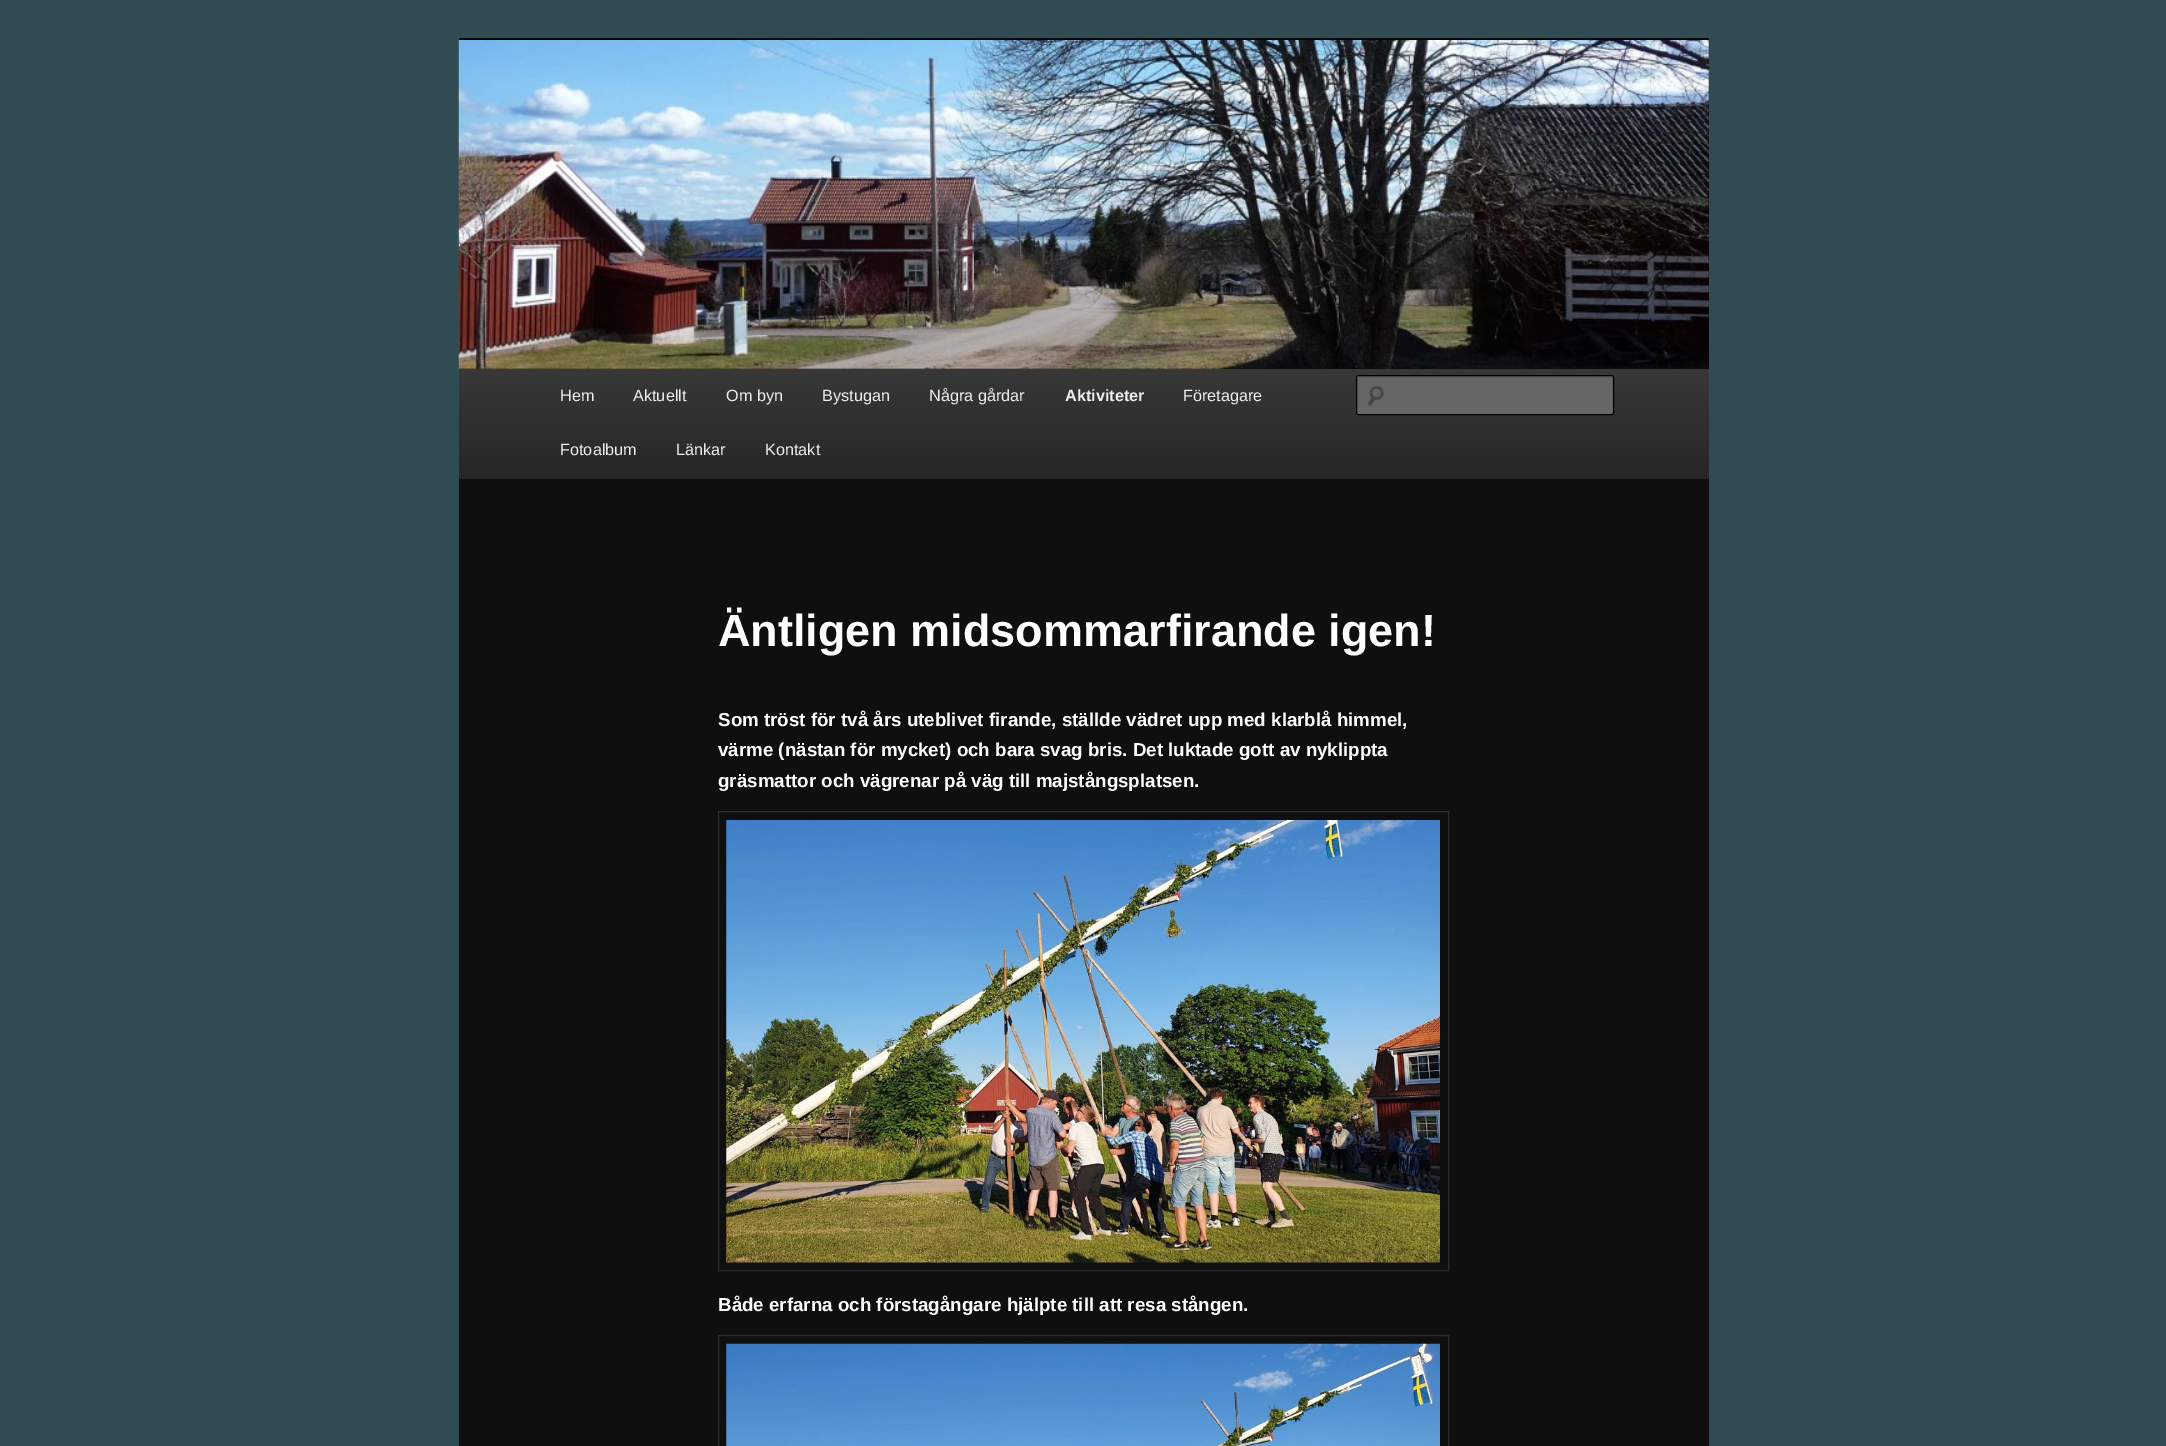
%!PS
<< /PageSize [2166 1446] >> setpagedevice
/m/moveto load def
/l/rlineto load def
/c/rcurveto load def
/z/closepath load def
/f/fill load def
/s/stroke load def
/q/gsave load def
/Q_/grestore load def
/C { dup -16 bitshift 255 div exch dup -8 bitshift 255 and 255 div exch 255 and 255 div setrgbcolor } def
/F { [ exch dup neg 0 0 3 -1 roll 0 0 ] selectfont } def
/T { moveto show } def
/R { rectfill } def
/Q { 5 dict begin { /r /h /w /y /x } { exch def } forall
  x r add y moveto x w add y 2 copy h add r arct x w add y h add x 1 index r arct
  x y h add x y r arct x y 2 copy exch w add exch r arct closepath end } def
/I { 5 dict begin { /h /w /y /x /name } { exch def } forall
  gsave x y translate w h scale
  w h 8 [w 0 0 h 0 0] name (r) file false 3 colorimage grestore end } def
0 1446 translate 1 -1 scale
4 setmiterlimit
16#304B51 C
0 0 2166 1446 R
16#0F0F0F C
459 41 1250 1405 R
16#0A0A0A C
459 38 1250 3 R
(1.rgb) 458 40 1251 329 I
q 459 369 m 1250 0 l 0 109 l -1250 0 l z clip newpath
<< /ShadingType 2 /ColorSpace /DeviceRGB /Coords [1084 369 1084 478] /Extend [true true] /Function << /FunctionType 2 /Domain [0 1] /C0 [.22 .22 .22] /C1 [.153 .153 .153] /N 1 >> >> shfill Q_
16#222222 C
459 478 1250 1 R
/LiberationSans-Regular 16.25 F
16#EEEEEE C
(Hem) 560 401 T
(Aktuellt) 633 401 T
(Om byn) 726 401 T
(Bystugan) 822 401 T
(Några gårdar) 929 401 T
/LiberationSans-Bold 16.25 F
(Aktiviteter) 1065 401 T
/LiberationSans-Regular 16.25 F
(Företagare) 1183 401 T
(Fotoalbum) 560 455 T
(Länkar) 676 455 T
(Kontakt) 765 455 T
16#666666 C
1356 375 258 40 2.5 Q f
(2.rgb) 1367 385 17 22 I
16#5C5C5C C
1359 378 m 252 0 l 1 0 1 0 1 1 c 0 35 l 1 -1 l 0 -36 l -1 -1 l -253 0 l -1 0 -1 2 -1 3 c 0 -1 0 -1 1 -1 c z f
16#000000 C
1356.5 375.5 257 39 2 Q s
/LiberationSans-Bold 45 F
16#FFFFFF C
(Äntligen midsommarfirande igen!) 718 646 T
/LiberationSans-Bold 18.75 F
(Som tröst för två års uteblivet firande, ställde vädret upp med klarblå himmel,) 718 726 T
(värme \(nästan för mycket\) och bara svag bris. Det luktade gott av nyklippta) 718 756 T
(gräsmattor och vägrenar på väg till majstångsplatsen.) 718 787 T
16#2C2C2C C
718.5 811.5 730 459 rectstroke
(3.rgb) 726 820 714 443 I
16#FFFFFF C
(Både erfarna och förstagångare hjälpte till att resa stången.) 718 1311 T
16#2C2C2C C
718.5 1335.5 730 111 rectstroke
(4.rgb) 726 1343 714 103 I
showpage
